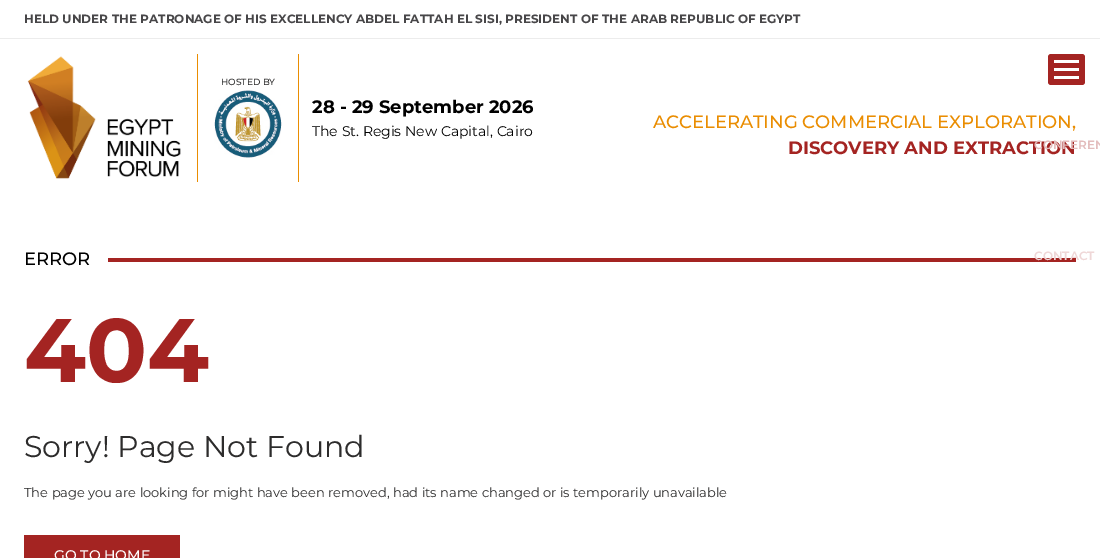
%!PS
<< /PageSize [1100 558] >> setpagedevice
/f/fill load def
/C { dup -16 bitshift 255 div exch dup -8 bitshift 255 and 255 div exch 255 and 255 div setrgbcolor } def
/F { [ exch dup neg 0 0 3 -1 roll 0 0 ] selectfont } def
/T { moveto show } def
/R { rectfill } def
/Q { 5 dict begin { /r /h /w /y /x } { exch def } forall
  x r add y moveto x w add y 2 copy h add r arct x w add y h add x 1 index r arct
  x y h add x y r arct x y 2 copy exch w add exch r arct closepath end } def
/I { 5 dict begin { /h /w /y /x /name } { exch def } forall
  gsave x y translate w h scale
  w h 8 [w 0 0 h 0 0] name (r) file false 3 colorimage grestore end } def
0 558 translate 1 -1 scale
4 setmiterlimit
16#FFFFFF C
0 0 1100 558 R
16#ECECEC C
0 38 1100 1 R
/Montserrat-Bold 12 F
16#474648 C
(HELD UNDER THE PATRONAGE OF HIS EXCELLENCY ABDEL FATTAH EL SISI, PRESIDENT OF THE ARAB REPUBLIC OF EGYPT) 24 23 T
16#A42422 C
1048 54 37 31 3 Q f
16#FFFFFF C
1054 60 25 3 R
1054 68 25 3 R
1054 76 25 3 R
(1.rgb) 27 56 154 123 I
16#EA8D01 C
298 54 1 128 R
197 54 1 128 R
/Montserrat-Medium 9 F
16#2D2C2C C
(HOSTED BY) 221 85 T
(2.rgb) 214 90 68 68 I
/Montserrat-Bold 18 F
16#000000 C
(28 - 29 September 2026) 312 113 T
/Montserrat-Regular 14 F
(The St. Regis New Capital, Cairo) 312 136 T
/Montserrat-Medium 18 F
16#EA8D01 C
(ACCELERATING COMMERCIAL EXPLORATION,) 653 128 T
/Montserrat-Bold 18 F
16#A42422 C
(DISCOVERY AND EXTRACTION) 788 154 T
/Montserrat-SemiBold 12 F
16#E3BCBC C
(CONFEREN) 1034 149 T
16#A42422 C
108 258 968 4 R
16#EFD7D7 C
(CONTACT) 1034 260 T
/Montserrat-Medium 18 F
16#000000 C
(ERROR) 24 265 T
/Montserrat-Bold 90 F
16#A42422 C
(404) 24 382 T
/Montserrat-Regular 30 F
16#2D2C2C C
(Sorry! Page Not Found) 24 457 T
/Montserrat-Regular 13 F
(The page you are looking for might have been removed, had its name changed or is temporarily unavailable) 24 497 T
16#A42422 C
24 535 156 23 R
/Montserrat-Medium 14 F
16#FFFFFF C
(GO TO HOME) 54 560 T
showpage
